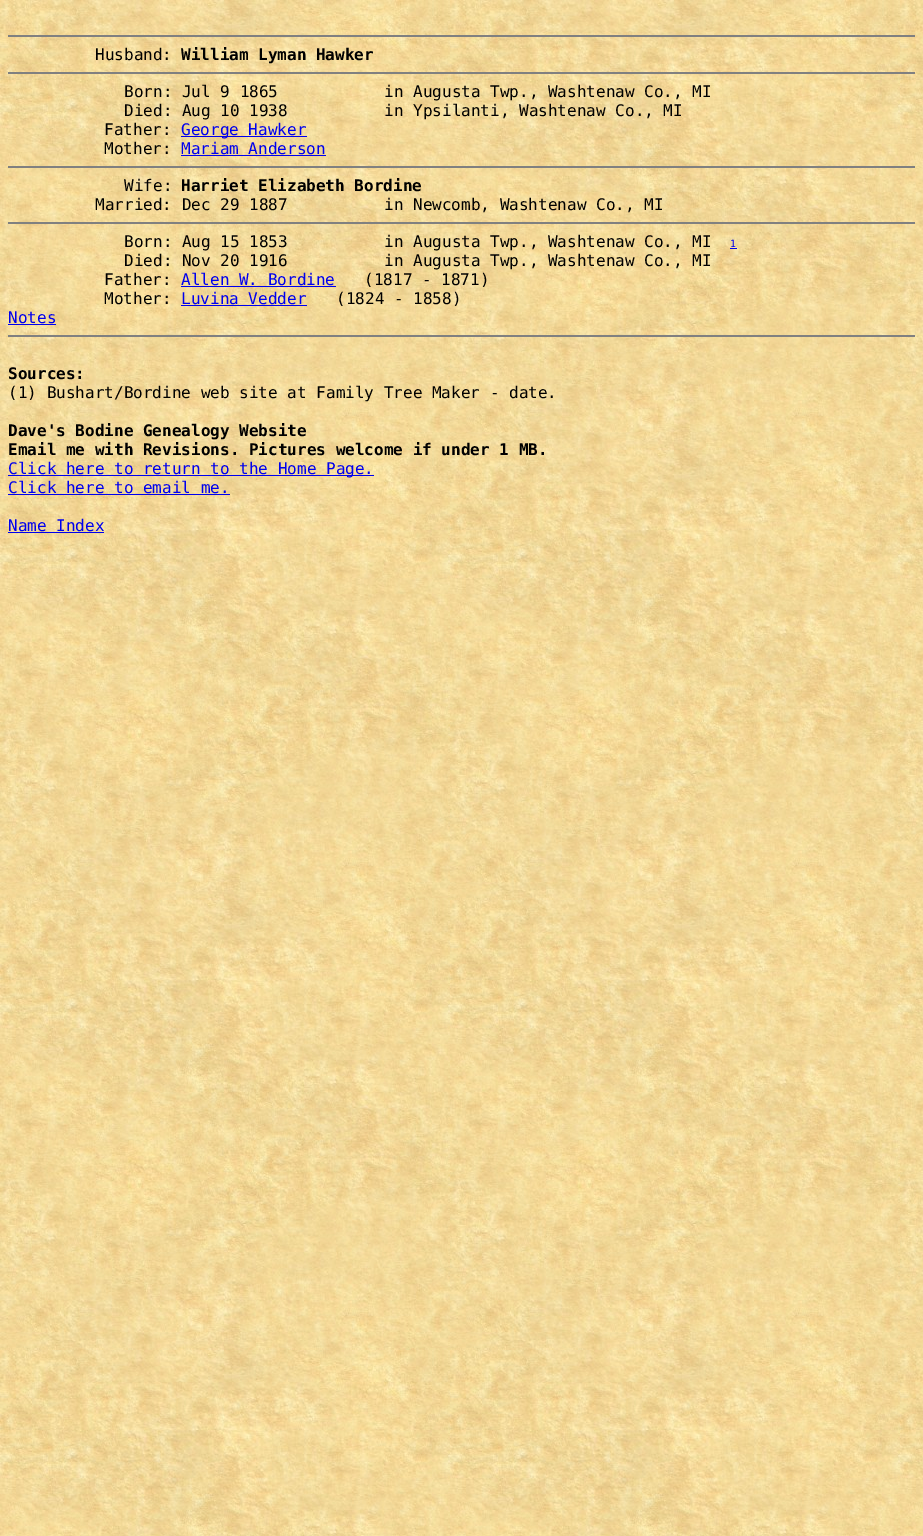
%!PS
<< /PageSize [923 1536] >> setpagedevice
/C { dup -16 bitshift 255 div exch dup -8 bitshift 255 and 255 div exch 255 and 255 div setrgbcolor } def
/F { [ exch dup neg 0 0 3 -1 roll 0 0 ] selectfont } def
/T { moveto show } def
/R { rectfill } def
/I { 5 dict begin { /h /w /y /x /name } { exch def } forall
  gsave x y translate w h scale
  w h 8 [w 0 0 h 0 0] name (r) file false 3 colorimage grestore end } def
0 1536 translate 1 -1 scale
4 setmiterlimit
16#FFFFFF C
0 0 923 1536 R
(1.rgb) 0 0 923 1536 I
16#808080 C
8 35 907 2 R
/DejaVuSansMono-Regular 16 F
16#000000 C
(Husband:) 95 60 T
/DejaVuSansMono-Bold 16 F
(William Lyman Hawker) 181 60 T
16#808080 C
8 72 907 2 R
/DejaVuSansMono-Regular 16 F
16#000000 C
(Born: Jul 9 1865           in Augusta Twp., Washtenaw Co., MI) 124 97 T
(Died: Aug 10 1938          in Ypsilanti, Washtenaw Co., MI) 124 116 T
(Father:) 104 135 T
16#0000EE C
181 136 126 1 R
(George Hawker) 181 135 T
16#000000 C
(Mother:) 104 154 T
16#0000EE C
(Mariam Anderson) 181 154 T
181 155 145 1 R
16#808080 C
8 166 907 2 R
16#000000 C
(Wife:) 124 191 T
/DejaVuSansMono-Bold 16 F
(Harriet Elizabeth Bordine) 181 191 T
/DejaVuSansMono-Regular 16 F
(Married: Dec 29 1887          in Newcomb, Washtenaw Co., MI) 95 210 T
16#808080 C
8 222 907 2 R
16#000000 C
(Born: Aug 15 1853          in Augusta Twp., Washtenaw Co., MI) 124 247 T
/DejaVuSansMono-Regular 10 F
16#0000EE C
(1) 730 247 T
730 248 7 1 R
/DejaVuSansMono-Regular 16 F
16#000000 C
(Died: Nov 20 1916          in Augusta Twp., Washtenaw Co., MI) 124 266 T
(Father:) 104 285 T
16#0000EE C
(Allen W. Bordine) 181 285 T
181 286 155 1 R
16#000000 C
(\(1817 - 1871\)) 364 285 T
(Mother:) 104 304 T
16#0000EE C
(Luvina Vedder) 181 304 T
181 305 126 1 R
16#000000 C
(\(1824 - 1858\)) 336 304 T
16#0000EE C
(Notes) 8 323 T
8 324 48 1 R
16#808080 C
8 335 907 2 R
/DejaVuSansMono-Bold 16 F
16#000000 C
(Sources:) 8 379 T
/DejaVuSansMono-Regular 16 F
(\(1\) Bushart/Bordine web site at Family Tree Maker - date.) 8 398 T
/DejaVuSansMono-Bold 16 F
(Dave's Bodine Genealogy Website) 8 436 T
(Email me with Revisions. Pictures welcome if under 1 MB.) 8 455 T
16#0000EE C
8 475 366 1 R
/DejaVuSansMono-Regular 16 F
(Click here to return to the Home Page.) 8 474 T
(Click here to email me.) 8 493 T
8 494 222 1 R
(Name Index) 8 531 T
8 532 96 1 R
showpage
